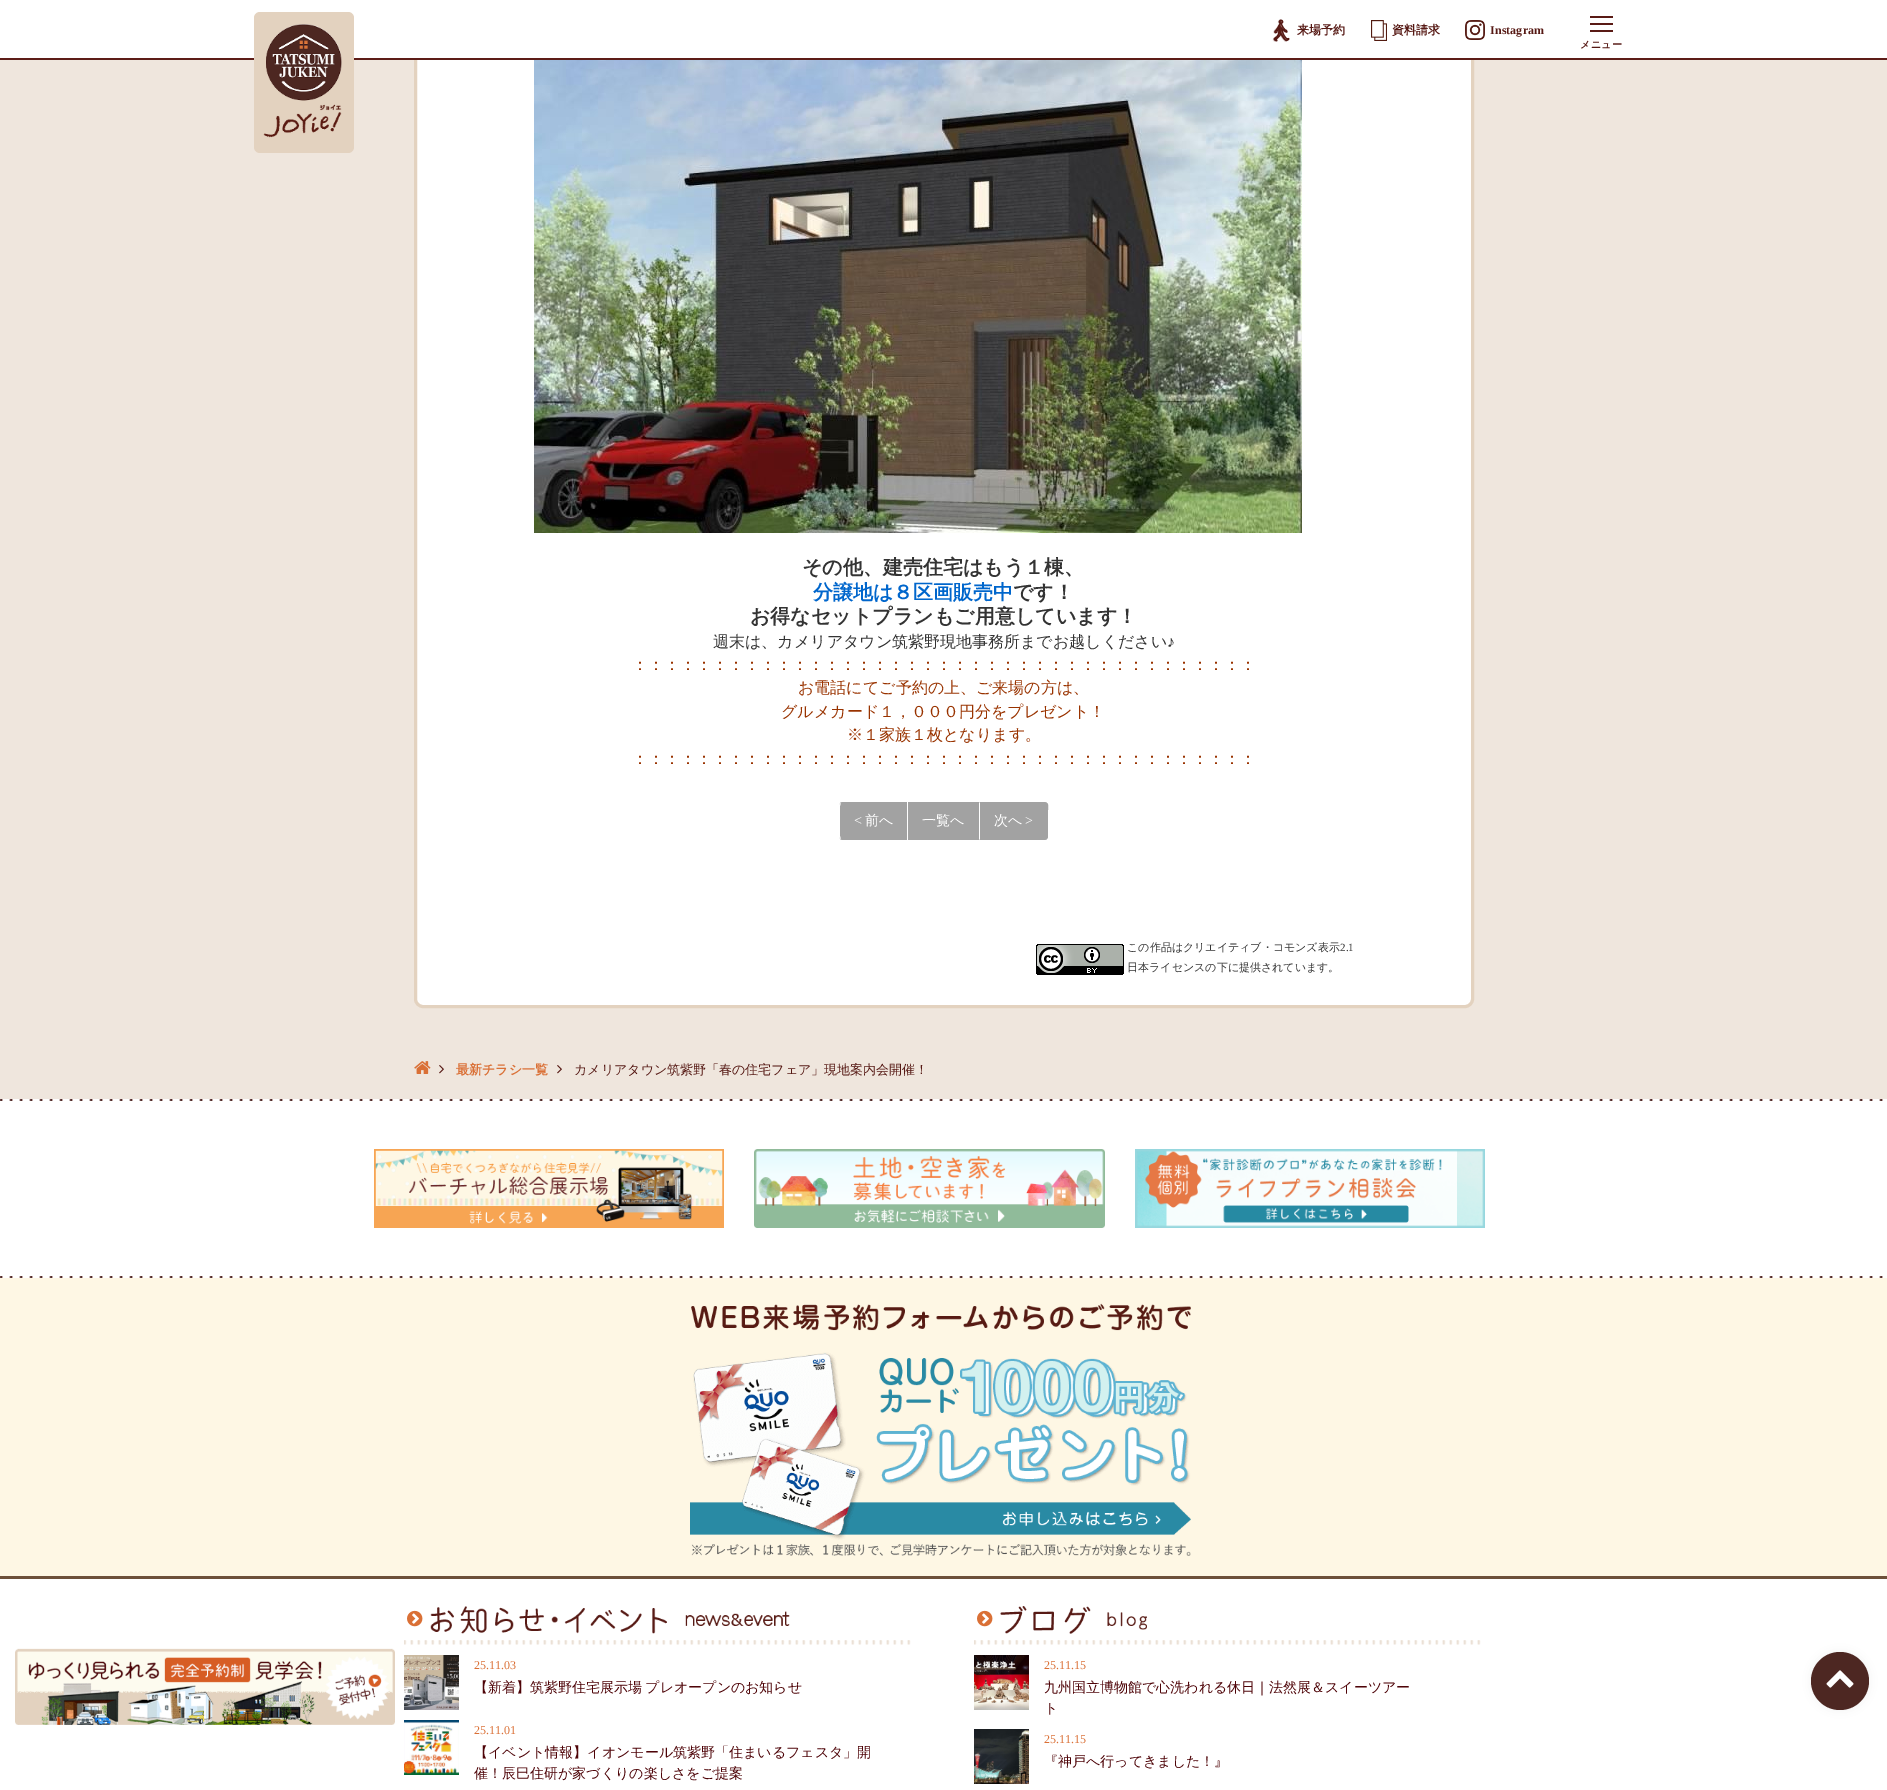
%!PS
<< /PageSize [1887 1790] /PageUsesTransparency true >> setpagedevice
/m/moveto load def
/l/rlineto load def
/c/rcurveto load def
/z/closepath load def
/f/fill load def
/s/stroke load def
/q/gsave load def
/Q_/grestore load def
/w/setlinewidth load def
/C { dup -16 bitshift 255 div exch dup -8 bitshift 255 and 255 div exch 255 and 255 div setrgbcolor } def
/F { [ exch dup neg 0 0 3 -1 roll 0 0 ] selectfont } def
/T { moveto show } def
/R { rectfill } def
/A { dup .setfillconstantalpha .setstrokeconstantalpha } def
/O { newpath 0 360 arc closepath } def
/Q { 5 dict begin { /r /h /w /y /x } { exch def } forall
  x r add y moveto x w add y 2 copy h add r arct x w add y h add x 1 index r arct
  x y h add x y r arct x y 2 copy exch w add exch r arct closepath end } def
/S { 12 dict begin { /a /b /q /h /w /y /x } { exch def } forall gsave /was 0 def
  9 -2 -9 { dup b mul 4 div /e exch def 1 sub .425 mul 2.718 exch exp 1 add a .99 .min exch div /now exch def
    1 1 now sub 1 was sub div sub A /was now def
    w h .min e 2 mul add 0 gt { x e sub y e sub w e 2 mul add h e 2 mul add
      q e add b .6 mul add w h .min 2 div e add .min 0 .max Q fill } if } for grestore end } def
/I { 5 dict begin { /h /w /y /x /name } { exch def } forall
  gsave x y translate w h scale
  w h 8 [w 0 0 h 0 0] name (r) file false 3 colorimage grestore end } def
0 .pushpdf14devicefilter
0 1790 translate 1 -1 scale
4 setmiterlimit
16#EFE6DD C
0 0 1887 1790 R
16#FFFFFF C
0 1579 1887 211 R
(1.rgb) 15 1648 380 77 I
415.5 -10.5 1057 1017 7.5 Q q f Q_
16#E3D2BF C
3 w
s
16#FFFFFF C
0 0 1887 58 R
16#5D1D18 C
0 58 1887 2 R
16#E3D2BF C
254 12 100 141 6 Q f
(2.rgb) 263 24 79 114 I
(3.rgb) 1272 19 18 23 I
/WenQuanYiZenHei-Bold 12 F
16#561914 C
1297 34 m .1 0 (来場予約) ashow
(4.rgb) 1371 20 16 21 I
1392 34 m .1 0 (資料請求) ashow
(5.rgb) 1465 20 20 20 I
/LiberationSerif-Bold 12 F
1490 34 m .1 0 (Instagram) ashow
16#591A15 C
1590 16 23 2 R
1590 23 23 2 R
1590 30 23 2 R
/WenQuanYiZenHei-Bold 10 F
16#561914 C
1580 48 m .5 0 (メニュー) ashow
(6.rgb) 534 60 768 473 I
/WenQuanYiZenHei-Bold 20 F
16#333333 C
(その他、建売住宅はもう１棟、) 802 574 T
16#0066CC C
(分譲地は８区画販売中) 813 599 T
16#333333 C
(です！) 1013 599 T
(お得なセットプランもご用意しています！) 750 623 T
/WenQuanYiZenHei-Medium 16 F
(週末は、カメリアタウン筑紫野現地事務所までお越しください) 713 647 T
/LiberationSerif-Regular 16 F
(♪) 1167 647 T
/WenQuanYiZenHei-Medium 16 F
16#993300 C
(：：：：：：：：：：：：：：：：：：：：：：：：：：：：：：：：：：：：：：：) 632 670 T
(お電話にてご予約の上、ご来場の方は、) 798 693 T
(グルメカード１，０００円分をプレゼント！) 781 717 T
(※１家族１枚となります。) 847 740 T
(：：：：：：：：：：：：：：：：：：：：：：：：：：：：：：：：：：：：：：：) 632 764 T
16#A2A2A2 C
843 802 m 65 0 l 0 38 l -65 0 l -2 0 -4 -2 -4 -4 c 0 -30 l 0 -2 2 -4 4 -4 c z f
843 802 m -3 1 l 1 1 l 1 -2 59 -1 66 -1 c 1 -1 l z f
908 840 m -1 -1 l -7 0 -65 1 -66 -1 c -1 1 l 3 1 l z f
16#FFFFFF C
839 806 m 0 30 l 0 1 .5 2 1 3 c 1 -1 l -1 0 -1 -1 -1 -2 c 0 -30 l 0 -1 0 -2 1 -2 c -1 -1 l -.5 1 -1 2 -1 3 c z f
/LiberationSerif-Regular 14 F
(<) 854 825 T
/WenQuanYiZenHei-Medium 14 F
(前へ) 865 825 T
16#A2A2A2 C
908 802 71 38 R
16#FFFFFF C
907 802 1 38 R
(一覧へ) 922 825 T
16#A2A2A2 C
979 802 m 65 0 l 2 0 4 2 4 4 c 0 30 l 0 2 -2 4 -4 4 c -65 0 l z f
979 802 m 1 1 l 53 0 l 8 0 11 0 13 1 c 1 -1 l -1 -1 -4 -1 -7 -1 c z f
1048 837 m -1 2 l -1 -1 l 2.5 -1.5 1 -8 1 -10.5 c 0 -13 l 0 -2.5 1.5 -9 -1 -10.5 c 1 -1 l 2 1.5 1 5.5 1 7 c z f
1040 840 m 3 0 6 0 7 -1 c -1 -1 l -2 1 -5 1 -13 1 c -53 0 l -1 1 l z f
16#FFFFFF C
979 802 m 0 38 l 1 -1 l 0 -36 l z f
(次へ) 994 825 T
/LiberationSerif-Regular 14 F
(>) 1025 825 T
(7.rgb) 1036 944 88 31 I
/WenQuanYiZenHei-Medium 11 F
16#333333 C
(この作品はクリエイティブ・コモンズ表示) 1127 951 T
/LiberationSerif-Regular 11 F
(2.1) 1340 951 T
/WenQuanYiZenHei-Medium 11 F
(日本ライセンスの下に提供されています。) 1127 971 T
(8.rgb) 414 1061 17 13 I
(9.rgb) 439 1065 5 9 I
/WenQuanYiZenHei-Bold 13 F
16#DA7036 C
(最新チラシ一覧) 456 1074 T
(9.rgb) 557 1065 5 9 I
/WenQuanYiZenHei-Medium 13 F
16#561914 C
(カメリアタウン筑紫野「春の住宅フェア」現地案内会開催！) 574 1074 T
16#FFFFFF C
0 1099 1887 179 R
(10.rgb) 0 1099 1883 179 I
(11.rgb) 374 1149 350 79 I
(12.rgb) 754 1149 351 79 I
(13.rgb) 1135 1149 350 79 I
16#FEF7E4 C
0 1278 1887 298 R
(14.rgb) 690 1303 501 253 I
16#6D5039 C
0 1576 1887 3 R
(15.rgb) 404 1640 507 5 I
(16.rgb) 407 1610 16 17 I
(17.rgb) 430 1606 360 28 I
(18.rgb) 404 1655 55 55 I
/LiberationSerif-Regular 12 F
16#DA7036 C
(25.11.03) 474 1669 T
/WenQuanYiZenHei-Medium 14 F
16#4E0408 C
474 1692 m -1 0 32 (【新着】筑紫野住宅展示場 プレオープンのお知らせ) widthshow
(19.rgb) 404 1720 55 55 I
/LiberationSerif-Regular 12 F
16#DA7036 C
(25.11.01) 474 1734 T
/WenQuanYiZenHei-Medium 14 F
16#4E0408 C
(【イベント情報】イオンモール筑紫野「住まいるフェスタ」開) 474 1757 T
(催！辰巳住研が家づくりの楽しさをご提案) 474 1778 T
(15.rgb) 974 1640 507 5 I
(16.rgb) 977 1610 16 17 I
(20.rgb) 1000 1606 147 28 I
(21.rgb) 974 1655 55 55 I
/LiberationSerif-Regular 12 F
16#DA7036 C
(25.11.15) 1044 1669 T
/WenQuanYiZenHei-Medium 14 F
16#4E0408 C
(九州国立博物館で心洗われる休日｜法然展＆スイーツアー) 1044 1692 T
(ト) 1044 1713 T
(22.rgb) 974 1729 55 55 I
/LiberationSerif-Regular 12 F
16#DA7036 C
(25.11.15) 1044 1743 T
/WenQuanYiZenHei-Medium 14 F
16#4E0408 C
(『神戸へ行ってきました！』) 1044 1766 T
16#000000 C
1811 1652 58 58 29 5 .05 S
16#4D2722 C
1840 1681 29 O f
(23.rgb) 1826 1670 28 18 I
.poppdf14devicefilter showpage
